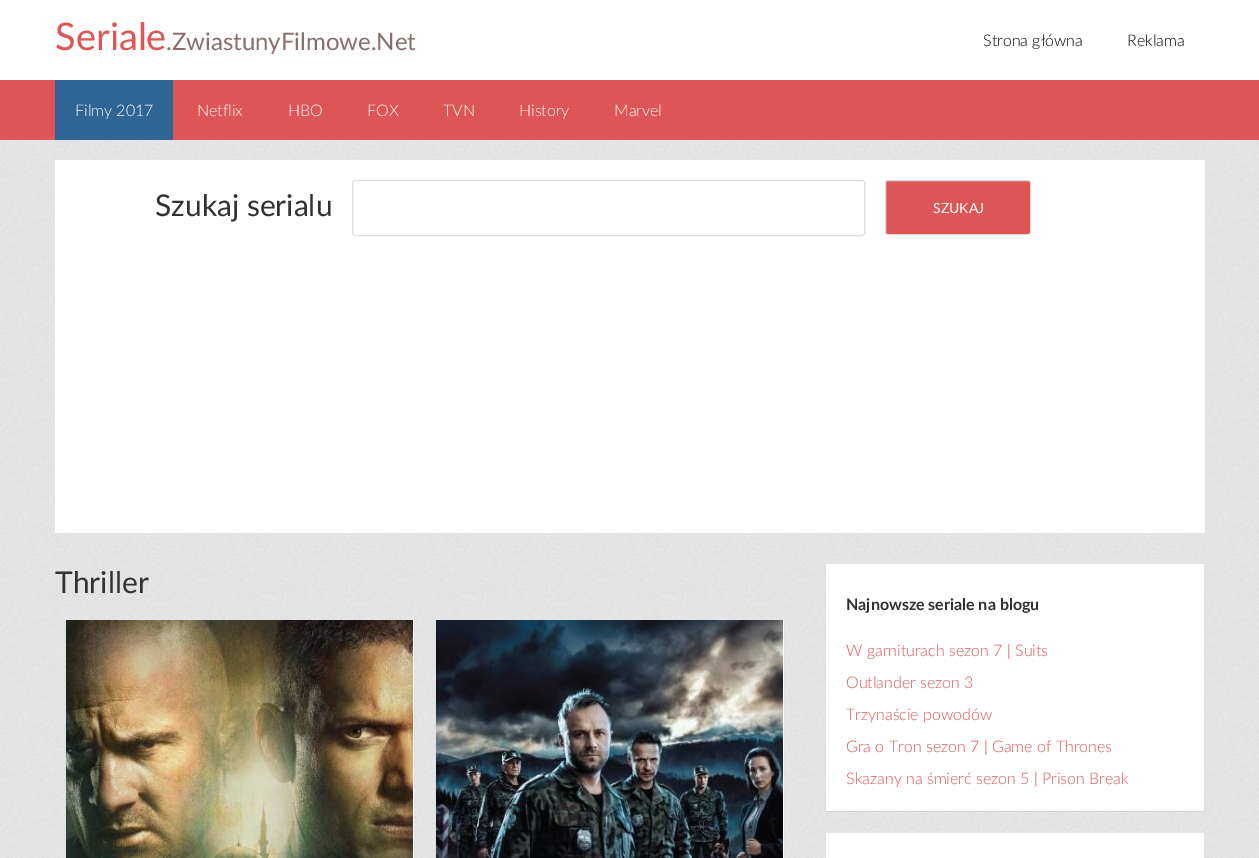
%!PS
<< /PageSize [1259 858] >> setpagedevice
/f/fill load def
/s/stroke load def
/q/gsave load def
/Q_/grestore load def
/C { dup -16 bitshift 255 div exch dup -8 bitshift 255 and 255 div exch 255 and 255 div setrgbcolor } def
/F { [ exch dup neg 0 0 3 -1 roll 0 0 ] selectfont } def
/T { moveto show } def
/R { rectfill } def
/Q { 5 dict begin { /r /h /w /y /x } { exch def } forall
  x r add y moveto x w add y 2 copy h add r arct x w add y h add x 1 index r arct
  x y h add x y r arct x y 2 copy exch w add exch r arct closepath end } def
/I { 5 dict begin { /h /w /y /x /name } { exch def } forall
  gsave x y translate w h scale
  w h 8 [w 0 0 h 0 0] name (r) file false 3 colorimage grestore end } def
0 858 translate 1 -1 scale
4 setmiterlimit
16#FFFFFF C
0 0 1259 858 R
(1.rgb) 0 140 1259 718 I
/Lato-Regular 38 F
16#DD5555 C
(Seriale) 55 50 T
/Lato-Regular 24 F
16#8A6E6E C
(.ZwiastunyFilmowe.Net) 166 50 T
/Lato-Light 16 F
16#000000 C
(Strona główna) 983 46 T
(Reklama) 1127 46 T
16#DD5555 C
0 80 1259 60 R
16#2E6594 C
55 80 118 60 R
16#FFFFFF C
(Filmy 2017) 75 116 T
(Netflix) 197 116 T
(HBO) 288 116 T
(FOX) 367 116 T
(TVN) 443 116 T
(History) 519 116 T
(Marvel) 614 116 T
55 160 1150 373 R
/Lato-Regular 30 F
16#313131 C
(Szukaj serialu) 155 216 T
16#DDDDDD C
352.5 180.5 512 55 2.5 Q s
16#DD5555 C
885.5 180.5 145 54 2.5 Q q f Q_
16#DDDDDD C
s
/Lato-Regular 14 F
16#FFFFFF C
(SZUKAJ) 933 213 T
/Lato-Regular 30 F
16#313131 C
(Thriller) 55 593 T
16#FFFFFF C
413 620 1 238 R
16#E5E6E9 C
65 619 350 1 R
16#DFE0E4 C
414 619 1 239 R
65 619 1 239 R
(2.rgb) 66 620 347 238 I
16#FFFFFF C
783 620 1 238 R
16#E5E6E9 C
435 619 350 1 R
16#DFE0E4 C
784 619 1 239 R
435 619 1 239 R
(3.rgb) 436 620 347 238 I
16#FFFFFF C
826 564 378 247 R
16#E5E6E9 C
825 563 380 1 R
16#DFE0E4 C
1204 563 1 249 R
16#D0D1D5 C
825 811 380 1 R
16#DFE0E4 C
825 563 1 249 R
/Lato-Bold 16 F
16#313131 C
(Najnowsze seriale na blogu) 846 610 T
/Lato-Light 16 F
16#DD5555 C
(W garniturach sezon 7 | Suits) 846 656 T
(Outlander sezon 3) 846 688 T
(Trzynaście powodów) 846 720 T
(Gra o Tron sezon 7 | Game of Thrones) 846 752 T
(Skazany na śmierć sezon 5 | Prison Break) 846 784 T
16#FFFFFF C
826 833 378 25 R
16#E5E6E9 C
825 832 380 1 R
16#DFE0E4 C
1204 832 1 26 R
825 832 1 26 R
showpage
